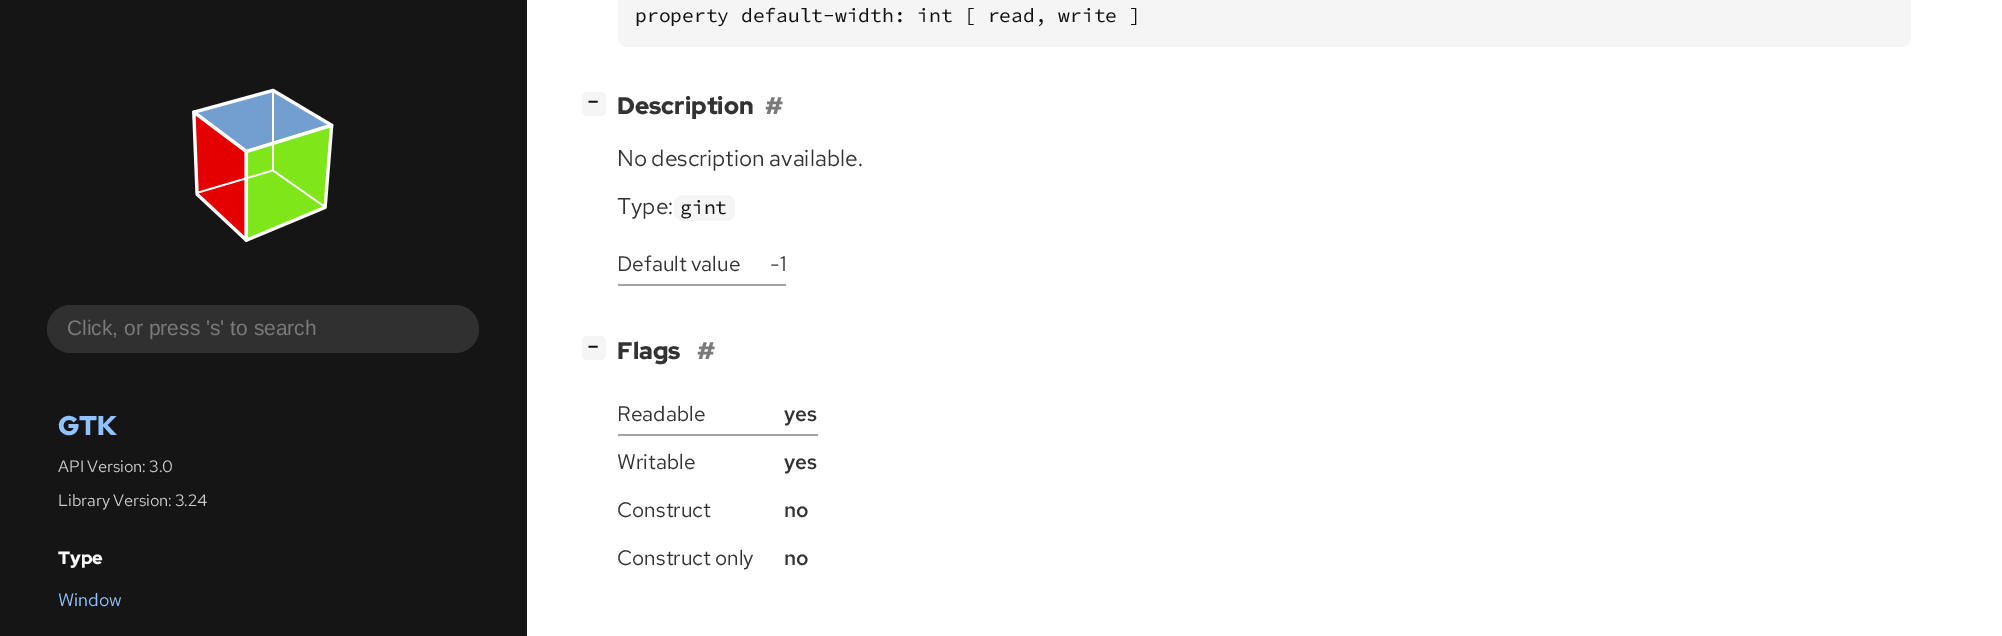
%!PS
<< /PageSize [2002 636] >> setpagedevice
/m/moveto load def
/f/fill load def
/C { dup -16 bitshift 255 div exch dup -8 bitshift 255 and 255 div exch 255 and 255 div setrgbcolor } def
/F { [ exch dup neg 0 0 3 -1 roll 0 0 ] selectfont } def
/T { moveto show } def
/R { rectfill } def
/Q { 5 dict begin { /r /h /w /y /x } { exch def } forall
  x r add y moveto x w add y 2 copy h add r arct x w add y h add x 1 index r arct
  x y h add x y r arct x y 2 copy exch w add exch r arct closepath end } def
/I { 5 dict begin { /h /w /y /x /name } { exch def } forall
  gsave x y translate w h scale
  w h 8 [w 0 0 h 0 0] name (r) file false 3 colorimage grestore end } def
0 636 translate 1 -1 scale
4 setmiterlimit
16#FFFFFF C
0 0 2002 636 R
16#151515 C
0 0 527 636 R
(1.rgb) 192 88 142 154 I
16#303030 C
47 305 432 48 24 Q f
/LiberationSans-Regular 21 F
16#7A7A7A C
(Click, or press 's' to search) 67 335 T
/RedHatDisplay-Black 27 F
16#90C2FF C
(GTK) 58 435 T
/RedHatText-Regular 16.5 F
16#CCCCCC C
58 472 m -1 0 32 (API Version: 3.0) widthshow
58 506 m -1 0 32 (Library Version: 3.24) widthshow
/RedHatDisplay-Black 18 F
16#FAFAFA C
(Type) 58 564 T
/RedHatText-Regular 18 F
16#90C2FF C
(Window) 58 606 T
16#F5F5F5 C
618 -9 1293 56 9 Q f
/SourceCodePro-Regular 19.6 F
16#111111 C
(property default-width: int [ read, write ]) 635 22 T
16#F5F5F5 C
582 92 24 24 6 Q f
/DejaVuSansMono-Bold 17 F
16#111111 C
(−) 588 107 T
/RedHatDisplay-Black 24 F
16#333333 C
(Description) 617 114 T
16#7A7A7A C
(#) 765 114 T
/RedHatText-Regular 22.75 F
16#333333 C
617 166 m -1 0 32 (No description available.) widthshow
(Type:) 617 214 T
16#F5F5F5 C
674 195 61 26 9 Q f
/SourceCodePro-Regular 19.6 F
16#111111 C
(gint) 680 214 T
16#A6A6A6 C
618 284 168 2 R
/RedHatText-Regular 21 F
16#333333 C
617 271 m -1 0 32 (Default value) widthshow
(-1) 770 271 T
16#F5F5F5 C
582 336 24 24 6 Q f
/DejaVuSansMono-Bold 17 F
16#111111 C
(−) 588 352 T
/RedHatDisplay-Black 24 F
16#333333 C
(Flags) 617 359 T
16#7A7A7A C
(#) 697 359 T
16#A6A6A6 C
618 434 200 2 R
/RedHatText-Regular 21 F
16#333333 C
(Readable) 617 421 T
/RedHatText-Medium 21 F
(yes) 784 421 T
/RedHatText-Regular 21 F
(Writable) 617 469 T
/RedHatText-Medium 21 F
(yes) 784 469 T
/RedHatText-Regular 21 F
(Construct) 617 517 T
/RedHatText-Medium 21 F
(no) 784 517 T
/RedHatText-Regular 21 F
617 565 m -1 0 32 (Construct only) widthshow
/RedHatText-Medium 21 F
(no) 784 565 T
showpage
